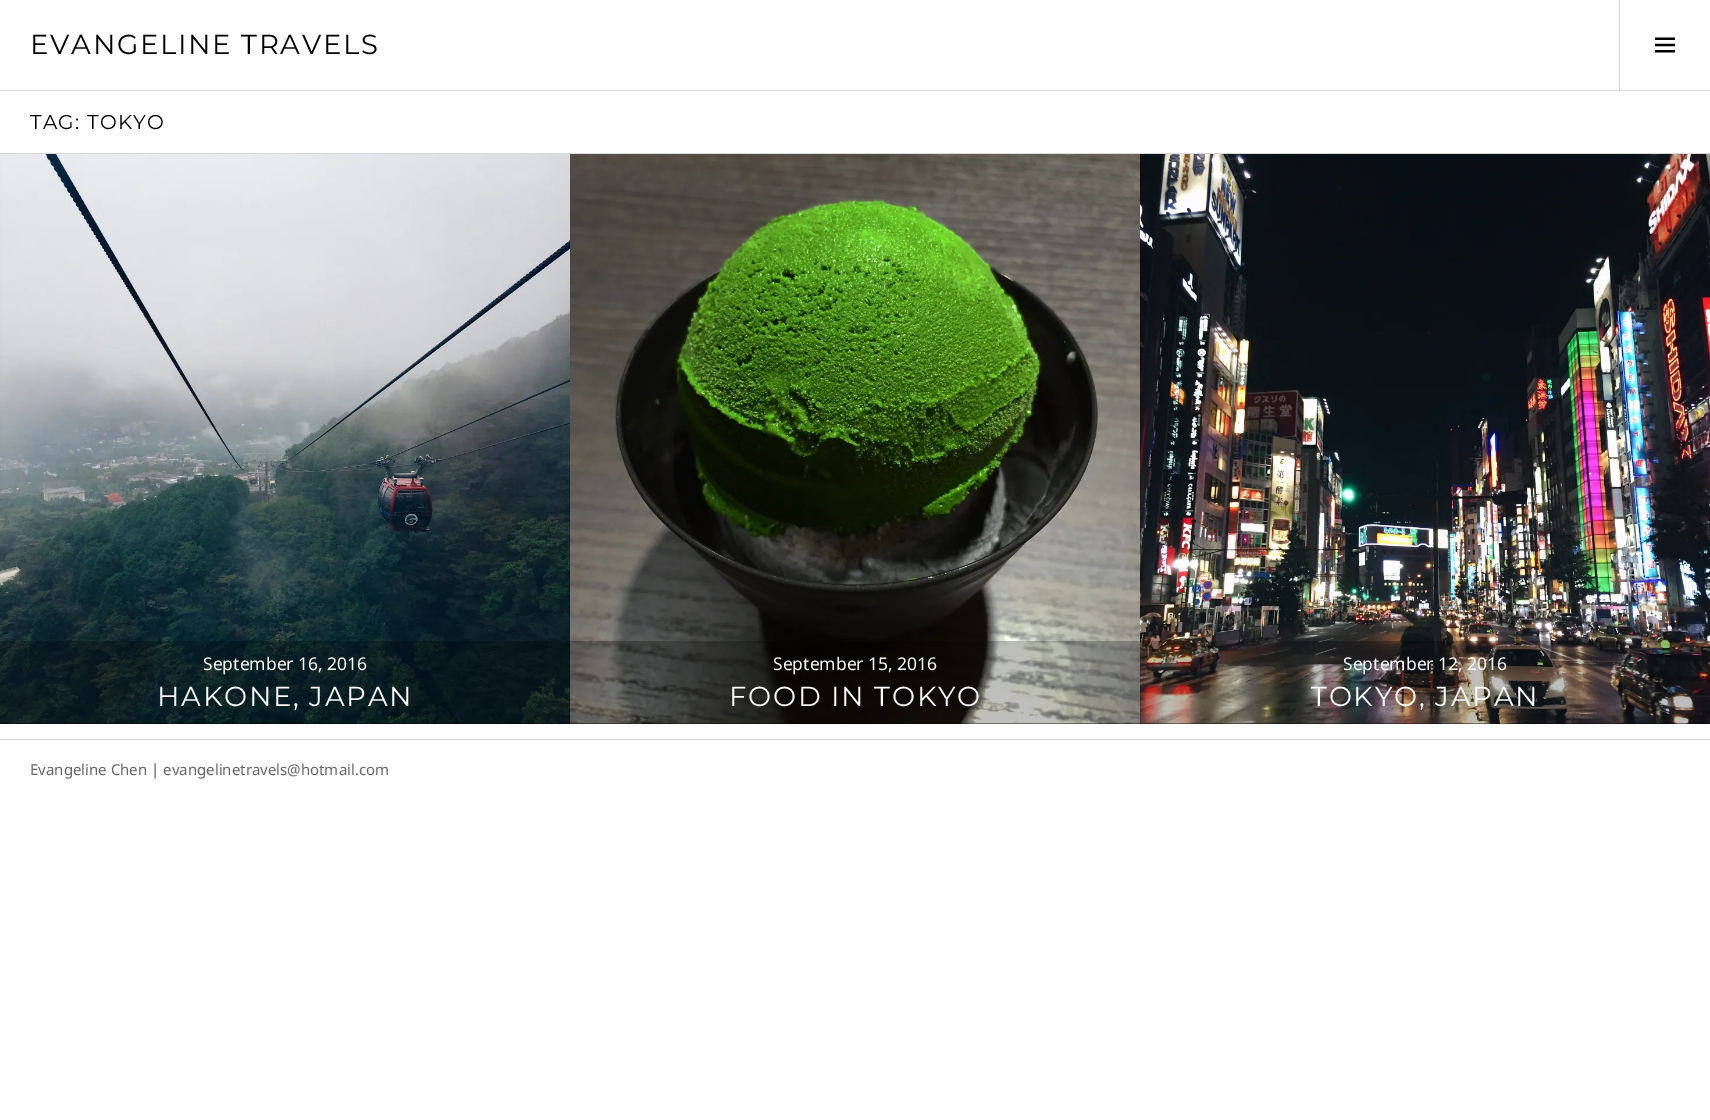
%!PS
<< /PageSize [1710 1120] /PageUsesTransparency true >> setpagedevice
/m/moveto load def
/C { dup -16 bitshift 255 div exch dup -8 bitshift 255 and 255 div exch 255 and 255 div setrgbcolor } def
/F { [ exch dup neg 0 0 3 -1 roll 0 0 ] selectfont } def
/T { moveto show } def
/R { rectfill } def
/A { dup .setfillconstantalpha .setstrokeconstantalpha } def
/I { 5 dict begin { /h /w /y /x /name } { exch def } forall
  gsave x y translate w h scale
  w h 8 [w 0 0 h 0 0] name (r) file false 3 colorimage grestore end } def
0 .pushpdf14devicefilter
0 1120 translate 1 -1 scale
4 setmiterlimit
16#FFFFFF C
0 0 1710 1120 R
16#D9D9D9 C
0 90 1710 1 R
/Montserrat-Regular 27.5 F
16#000000 C
30 54 m 1.75 0 (EVANGELINE TRAVELS) ashow
16#D9D9D9 C
1619 0 1 90 R
(1.rgb) 1655 37 20 16 I
0 153 1710 1 R
/Montserrat-Regular 20 F
16#000000 C
30 129 m 1.25 0 (TAG: TOKYO) ashow
0 154 1710 570 R
(2.rgb) 0 154 570 570 I
0.25 A
0 641 570 83 R
/NotoSans-Regular 17.5 F
1 A
16#FFFFFF C
(September 16, 2016) 203 670 T
/Montserrat-Regular 27.5 F
157 706 m 1.75 0 (HAKONE, JAPAN) ashow
(3.rgb) 570 154 570 570 I
0.25 A
16#000000 C
570 641 570 83 R
/NotoSans-Regular 17.5 F
1 A
16#FFFFFF C
(September 15, 2016) 773 670 T
/Montserrat-Regular 27.5 F
729 706 m 1.75 0 (FOOD IN TOKYO) ashow
(4.rgb) 1140 154 570 570 I
0.25 A
16#000000 C
1140 641 570 83 R
/NotoSans-Regular 17.5 F
1 A
16#FFFFFF C
(September 12, 2016) 1343 670 T
/Montserrat-Regular 27.5 F
1311 706 m 1.75 0 (TOKYO, JAPAN) ashow
16#D9D9D9 C
0 739 1710 1 R
/NotoSans-Regular 15 F
16#666666 C
(Evangeline Chen | evangelinetravels@hotmail.com) 30 775 T
.poppdf14devicefilter showpage
